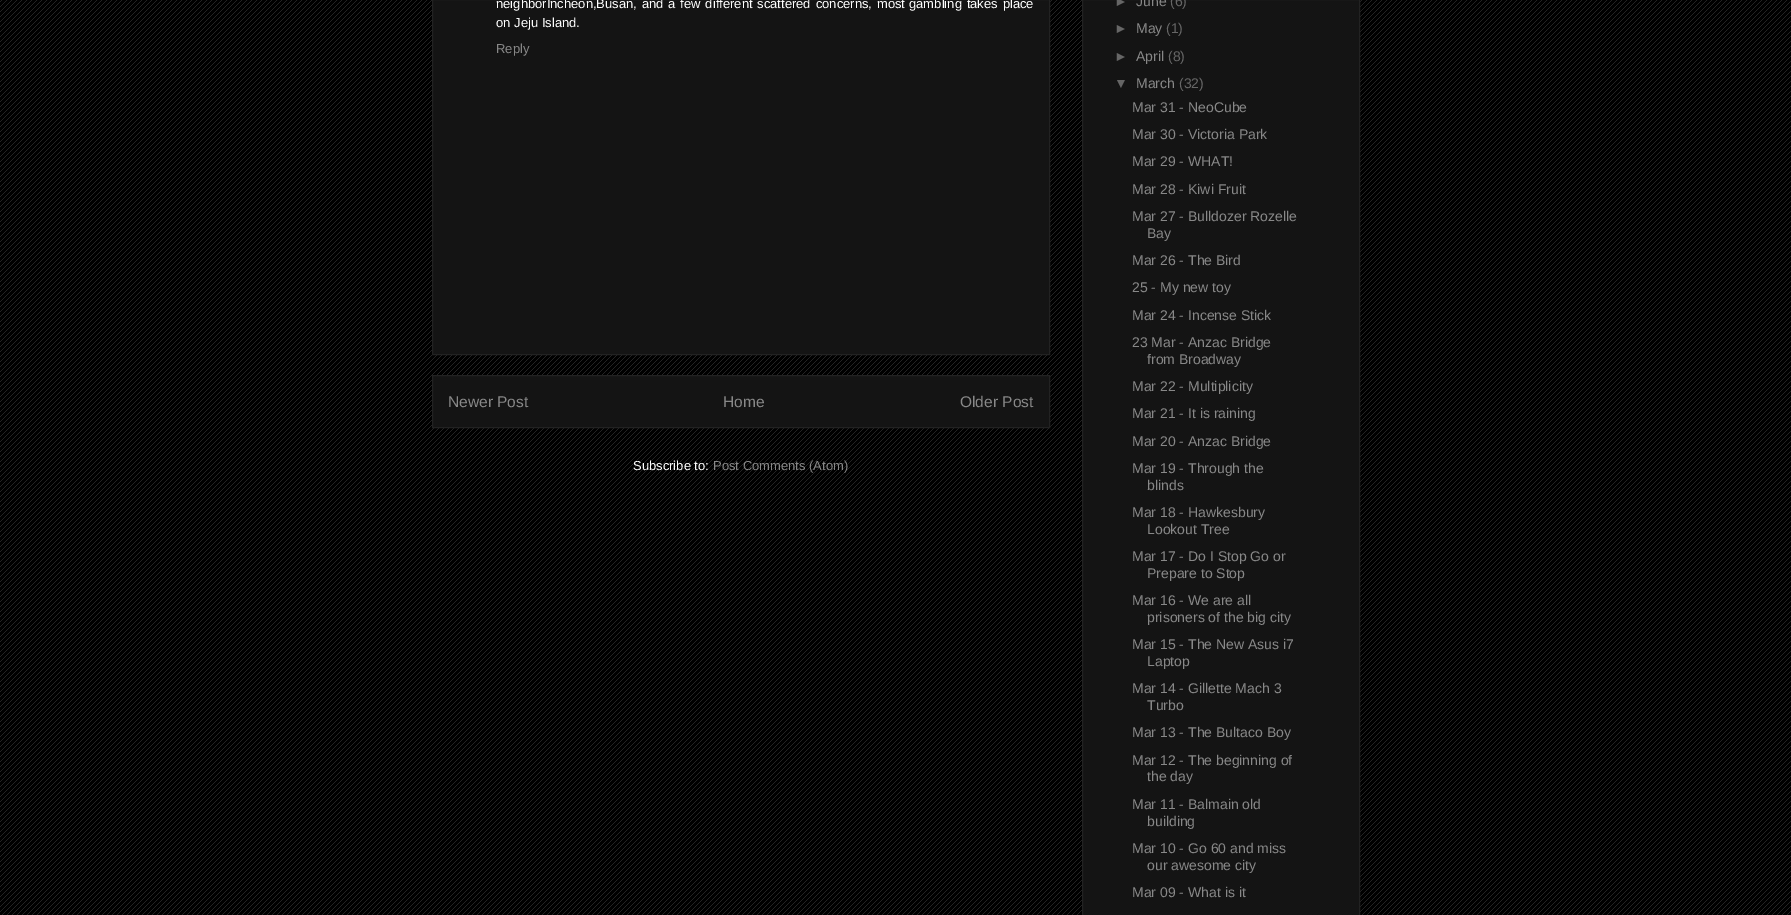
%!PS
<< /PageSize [1791 915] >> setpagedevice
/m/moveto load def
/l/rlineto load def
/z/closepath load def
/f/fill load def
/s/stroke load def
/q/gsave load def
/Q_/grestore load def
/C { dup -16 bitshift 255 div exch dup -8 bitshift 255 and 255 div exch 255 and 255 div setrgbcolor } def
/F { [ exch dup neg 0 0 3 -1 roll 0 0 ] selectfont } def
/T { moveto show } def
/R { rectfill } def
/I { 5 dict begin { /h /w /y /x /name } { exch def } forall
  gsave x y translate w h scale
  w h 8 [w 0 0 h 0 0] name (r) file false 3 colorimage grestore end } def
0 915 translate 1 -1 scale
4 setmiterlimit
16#000000 C
0 0 1791 915 R
(1.rgb) 0 0 1791 915 I
16#141414 C
432.5 -.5 m 617 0 l 0 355 l -617 0 l z q f Q_
16#222222 C
s
/LiberationSans-Regular 13 F
16#FFFFFF C
496 8 m 1.25 0 32 (neighborIncheon,Busan, and a few different scattered concerns, most) widthshow
909 8 m 1.25 0 32 (gambling takes place) widthshow
(on Jeju Island.) 496 27 T
16#888888 C
(Reply) 496 53 T
16#141414 C
432.5 375.5 m 617 0 l 0 52 l -617 0 l z q f Q_
16#222222 C
s
/LiberationSans-Regular 15.5 F
16#888888 C
(Newer Post) 448 407 T
(Home) 723 407 T
(Older Post) 960 407 T
/LiberationSans-Regular 13 F
16#FFFFFF C
(Subscribe to:) 633 470 T
16#888888 C
(Post Comments \(Atom\)) 713 470 T
16#141414 C
1082.5 -.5 m 277 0 l 0 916 l -277 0 l z q f Q_
16#222222 C
s
/LiberationSans-Regular 14 F
16#666666 C
(►) 1114 6 T
16#888888 C
(June) 1136 6 T
16#666666 C
(\(6\)) 1170 6 T
(►) 1114 33 T
16#888888 C
(May) 1136 33 T
16#666666 C
(\(1\)) 1166 33 T
(►) 1114 61 T
16#888888 C
(April) 1136 61 T
16#666666 C
(\(8\)) 1168 61 T
(▼) 1114 88 T
16#888888 C
(March) 1136 88 T
16#666666 C
(\(32\)) 1179 88 T
16#888888 C
(Mar 31 - NeoCube) 1132 112 T
(Mar 30 - Victoria Park) 1132 139 T
(Mar 29 - WHAT!) 1132 166 T
(Mar 28 - Kiwi Fruit) 1132 194 T
(Mar 27 - Bulldozer Rozelle) 1132 221 T
(Bay) 1147 238 T
(Mar 26 - The Bird) 1132 265 T
(25 - My new toy) 1132 292 T
(Mar 24 - Incense Stick) 1132 320 T
(23 Mar - Anzac Bridge) 1132 347 T
(from Broadway) 1147 364 T
(Mar 22 - Multiplicity) 1132 391 T
(Mar 21 - It is raining) 1132 418 T
(Mar 20 - Anzac Bridge) 1132 446 T
(Mar 19 - Through the) 1132 473 T
(blinds) 1147 490 T
(Mar 18 - Hawkesbury) 1132 517 T
(Lookout Tree) 1147 534 T
(Mar 17 - Do I Stop Go or) 1132 561 T
(Prepare to Stop) 1147 578 T
(Mar 16 - We are all) 1132 605 T
(prisoners of the big city) 1147 622 T
(Mar 15 - The New Asus i7) 1132 649 T
(Laptop) 1147 666 T
(Mar 14 - Gillette Mach 3) 1132 693 T
(Turbo) 1147 710 T
(Mar 13 - The Bultaco Boy) 1132 737 T
(Mar 12 - The beginning of) 1132 765 T
(the day) 1147 781 T
(Mar 11 - Balmain old) 1132 809 T
(building) 1147 826 T
(Mar 10 - Go 60 and miss) 1132 853 T
(our awesome city) 1147 870 T
(Mar 09 - What is it) 1132 897 T
showpage
